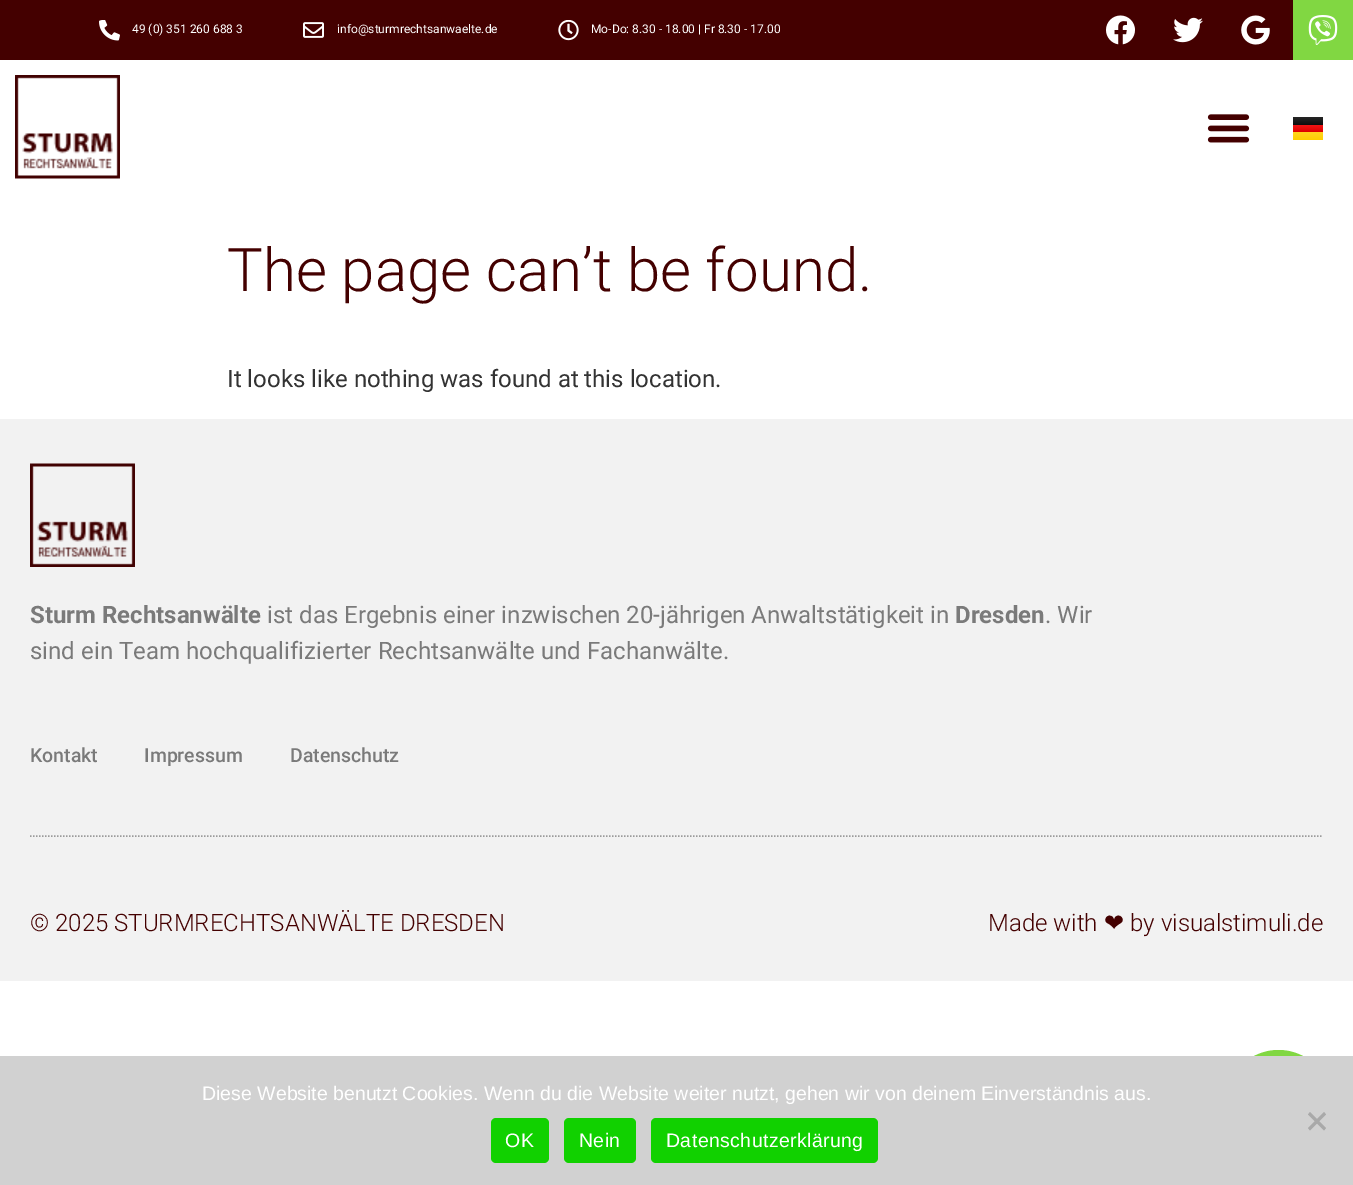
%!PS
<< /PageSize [1353 1185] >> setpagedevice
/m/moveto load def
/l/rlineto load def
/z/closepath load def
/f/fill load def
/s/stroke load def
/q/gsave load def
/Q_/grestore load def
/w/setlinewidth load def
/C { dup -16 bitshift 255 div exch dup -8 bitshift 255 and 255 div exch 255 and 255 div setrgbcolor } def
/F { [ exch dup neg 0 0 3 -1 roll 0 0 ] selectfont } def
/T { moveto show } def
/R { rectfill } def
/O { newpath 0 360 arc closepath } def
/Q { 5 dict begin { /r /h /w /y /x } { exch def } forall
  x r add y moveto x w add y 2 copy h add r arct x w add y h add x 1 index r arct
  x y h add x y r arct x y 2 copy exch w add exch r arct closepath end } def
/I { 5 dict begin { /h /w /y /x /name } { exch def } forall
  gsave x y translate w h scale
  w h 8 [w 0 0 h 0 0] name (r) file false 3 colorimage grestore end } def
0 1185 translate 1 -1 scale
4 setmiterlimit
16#FFFFFF C
0 0 1353 1185 R
16#440000 C
0 0 1293 60 R
(1.rgb) 99 20 21 21 I
/Roboto-Regular 12 F
16#FFFFFF C
(49 \(0\) 351 260 688 3) 132 33 T
(2.rgb) 303 22 21 16 I
(info@sturmrechtsanwaelte.de) 337 33 T
(3.rgb) 558 20 21 21 I
(Mo-Do: 8.30 - 18.00 | Fr 8.30 - 17.00) 591 33 T
(4.rgb) 1106 15 29 30 I
(5.rgb) 1173 17 30 26 I
(6.rgb) 1241 15 29 30 I
16#81D742 C
1293 0 60 60 R
(7.rgb) 1308 15 30 30 I
(8.rgb) 15 75 105 104 I
(9.rgb) 1207 114 43 29 I
q 1293 117 m 30 0 l 0 8 l -30 0 l z clip newpath
<< /ShadingType 2 /ColorSpace /DeviceRGB /Coords [1307 117 1307 125] /Extend [true true] /Function << /FunctionType 2 /Domain [0 1] /C0 [.149 .149 .149] /C1 [.051 .051 .051] /N 1 >> >> shfill Q_
q 1293 125 m 30 0 l 0 7 l -30 0 l z clip newpath
<< /ShadingType 2 /ColorSpace /DeviceRGB /Coords [1307 125 1307 132] /Extend [true true] /Function << /FunctionType 2 /Domain [0 1] /C0 [.941 .082 .082] /C1 [.871 0 0] /N 1 >> >> shfill Q_
q 1293 132 m 30 0 l 0 8 l -30 0 l z clip newpath
<< /ShadingType 2 /ColorSpace /DeviceRGB /Coords [1307 132 1307 140] /Extend [true true] /Function << /FunctionType 2 /Domain [0 1] /C0 [1 .835 .129] /C1 [1 .812 0] /N 1 >> >> shfill Q_
/Roboto-Light 60 F
16#440000 C
(The page can’t be found.) 227 291 T
/Roboto-Regular 24 F
16#333333 C
(It looks like nothing was found at this location.) 227 387 T
16#F2F2F2 C
0 419 1353 562 R
16#9B9B9B C
1.5 w
[1.5 1.5] 0 setdash
30 836 m 1293 0 l s
(10.rgb) 30 463 105 104 I
/Roboto-Bold 24 F
16#7A7A7A C
(Sturm Rechtsanwälte) 30 623 T
/Roboto-Regular 24 F
(ist das Ergebnis einer inzwischen 20-jährigen Anwaltstätigkeit in) 267 623 T
/Roboto-Bold 24 F
(Dresden) 955 623 T
/Roboto-Regular 24 F
(. Wir) 1045 623 T
(sind ein Team hochqualifizierter Rechtsanwälte und Fachanwälte.) 30 659 T
/Roboto-Medium 19.5 F
(Kontakt) 30 762 T
(Impressum) 144 762 T
(Datenschutz) 290 762 T
/Roboto-Light 24 F
16#440000 C
(© 2025 STURMRECHTSANWÄLTE DRESDEN) 30 931 T
(Made with) 988 931 T
/DejaVuSans-Regular 24 F
(❤) 1104 931 T
/Roboto-Light 24 F
(by visualstimuli.de) 1130 931 T
16#81D742 C
1278.5 1102.5 52.5 O f
16#D1D1D1 C
0 1056 1353 129 R
/LiberationSans-Regular 19.5 F
16#FFFFFF C
(Diese Website benutzt Cookies. Wenn du die Website weiter nutzt, gehen wir von deinem Einverständnis aus.) 202 1100 T
16#A9A9A9 C
1324 1112 m 2 2.5 l -16 16 l -2 -2.5 l z f
1308 1114.5 m 2 -2.5 l 16 16 l -2 2.5 l z f
16#11D100 C
491 1118 58 45 5 Q f
16#FFFFFF C
505 1147 m .4 0 (OK) ashow
16#11D100 C
564 1118 72 45 5 Q f
16#FFFFFF C
579 1147 m .4 0 (Nein) ashow
16#11D100 C
651 1118 227 45 5 Q f
16#FFFFFF C
666 1147 m .4 0 (Datenschutzerklärung) ashow
showpage
